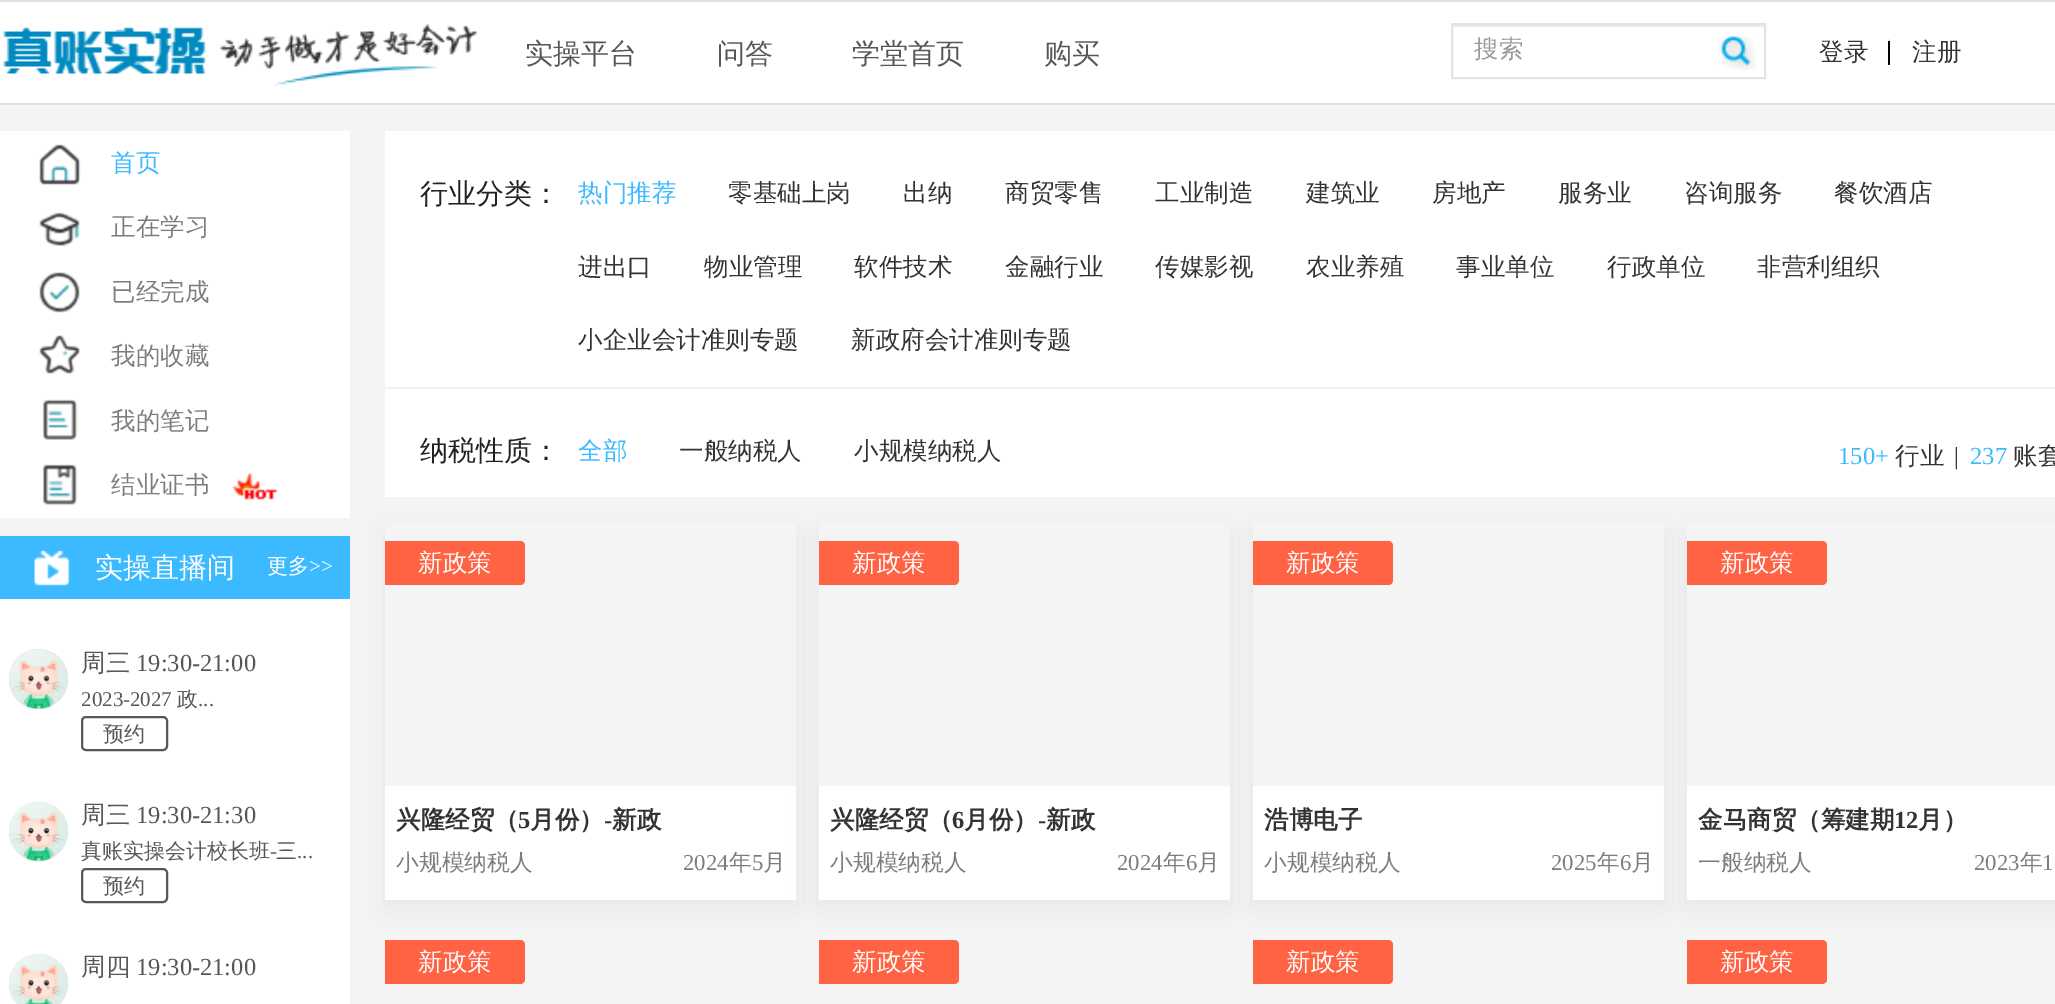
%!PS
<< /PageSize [2055 1004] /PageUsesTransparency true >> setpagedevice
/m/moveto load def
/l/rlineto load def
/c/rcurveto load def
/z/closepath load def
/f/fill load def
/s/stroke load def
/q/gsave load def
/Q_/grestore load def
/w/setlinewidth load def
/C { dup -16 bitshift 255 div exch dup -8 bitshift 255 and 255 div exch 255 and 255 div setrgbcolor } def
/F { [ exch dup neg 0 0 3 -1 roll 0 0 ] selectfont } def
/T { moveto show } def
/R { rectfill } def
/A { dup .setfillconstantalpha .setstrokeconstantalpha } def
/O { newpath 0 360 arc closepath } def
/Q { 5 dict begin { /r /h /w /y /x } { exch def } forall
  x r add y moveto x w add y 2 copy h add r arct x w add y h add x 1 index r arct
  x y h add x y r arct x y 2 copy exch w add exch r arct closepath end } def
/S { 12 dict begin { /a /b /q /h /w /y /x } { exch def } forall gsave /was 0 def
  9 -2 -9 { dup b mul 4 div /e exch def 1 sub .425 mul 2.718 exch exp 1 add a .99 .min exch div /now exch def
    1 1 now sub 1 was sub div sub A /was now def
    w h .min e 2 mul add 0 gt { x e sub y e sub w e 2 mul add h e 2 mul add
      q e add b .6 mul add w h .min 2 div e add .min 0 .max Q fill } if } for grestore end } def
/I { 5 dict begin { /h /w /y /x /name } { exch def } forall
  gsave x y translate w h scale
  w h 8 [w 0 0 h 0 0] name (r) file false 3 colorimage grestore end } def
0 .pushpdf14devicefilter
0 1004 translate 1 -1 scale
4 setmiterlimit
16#F4F4F4 C
0 0 2055 1004 R
16#FFFFFF C
0 2 2055 101 R
16#DFDFDF C
0 0 2055 2 R
0 103 2055 2 R
(1.rgb) 3 24 475 62 I
/WenQuanYiZenHei-Medium 28 F
16#575757 C
(实操平台) 525 63 T
(问答) 717 63 T
(学堂首页) 852 63 T
(购买) 1044 63 T
16#ECECEC C
1453 25 311 2 R
16#E3E3E3 C
2 w
1452 24 313 54 rectstroke
/WenQuanYiZenHei-Medium 24.5 F
16#999999 C
(搜索) 1474 57 T
(2.rgb) 1719 36 37 34 I
16#333333 C
(登录) 1819 60 T
16#000000 C
1888 39 2 26 R
16#EEEEEE C
1888 39 2 2 R
16#333333 C
(注册) 1912 60 T
16#FFFFFF C
0 131 350 873 R
(3.rgb) 39 144 42 41 I
16#3CBAFF C
(首页) 111 171 T
(4.rgb) 39 212 41 34 I
16#7D7D7D C
(正在学习) 111 235 T
(5.rgb) 39 272 41 41 I
(已经完成) 111 300 T
(6.rgb) 39 335 41 39 I
(我的收藏) 111 364 T
(7.rgb) 42 399 36 41 I
(我的笔记) 111 429 T
(8.rgb) 42 464 36 41 I
(结业证书) 111 493 T
(9.rgb) 232 472 46 28 I
16#3CBAFF C
0 536 350 63 R
16#F4F4F4 C
0 518 350 18 R
(10.rgb) 34 550 36 36 I
/WenQuanYiZenHei-Medium 28 F
16#FFFFFF C
(实操直播间) 95 577 T
/WenQuanYiZenHei-Medium 21 F
(更多) 267 573 T
/LiberationSerif-Regular 21 F
(>>) 309 573 T
16#DBDBDB C
9 649 59 60 29.5 Q f
(11.rgb) 9 649 60 61 I
/WenQuanYiZenHei-Medium 24.5 F
16#575757 C
(周三) 81 671 T
/LiberationSerif-Regular 24.5 F
(19:30-21:00) 136 671 T
/LiberationSerif-Regular 21 F
(2023-2027) 81 706 T
/WenQuanYiZenHei-Medium 21 F
(政) 177 706 T
/LiberationSerif-Regular 21 F
(...) 198 706 T
82 717 85 33 4 Q s
/WenQuanYiZenHei-Medium 21 F
(预约) 103 741 T
16#DBDBDB C
38.5 831.5 29.5 O f
(12.rgb) 9 801 60 61 I
/WenQuanYiZenHei-Medium 24.5 F
16#575757 C
(周三) 81 823 T
/LiberationSerif-Regular 24.5 F
(19:30-21:30) 136 823 T
/WenQuanYiZenHei-Medium 21 F
(真账实操会计校长班) 81 858 T
/LiberationSerif-Regular 21 F
(-) 270 858 T
/WenQuanYiZenHei-Medium 21 F
(三) 276 858 T
/LiberationSerif-Regular 21 F
(...) 297 858 T
82 869 85 33 4 Q s
/WenQuanYiZenHei-Medium 21 F
(预约) 103 893 T
(13.rgb) 9 954 60 50 I
/WenQuanYiZenHei-Medium 24.5 F
(周四) 81 975 T
/LiberationSerif-Regular 24.5 F
(19:30-21:00) 136 975 T
16#FFFFFF C
385 131 1670 256 R
/WenQuanYiZenHei-Medium 28 F
16#222222 C
(行业分类：) 420 203 T
/WenQuanYiZenHei-Medium 24.5 F
16#3CBAFF C
(热门推荐) 578 201 T
16#333333 C
(零基础上岗) 728 201 T
(出纳) 903 201 T
(商贸零售) 1005 201 T
(工业制造) 1155 201 T
(建筑业) 1306 201 T
(房地产) 1432 201 T
(服务业) 1558 201 T
(咨询服务) 1684 201 T
(餐饮酒店) 1834 201 T
(进出口) 578 275 T
(物业管理) 704 275 T
(软件技术) 854 275 T
(金融行业) 1005 275 T
(传媒影视) 1155 275 T
(农业养殖) 1306 275 T
(事业单位) 1456 275 T
(行政单位) 1607 275 T
(非营利组织) 1757 275 T
(小企业会计准则专题) 578 348 T
(新政府会计准则专题) 851 348 T
16#FFFFFF C
385 389 1670 108 R
16#F0F0F0 C
385 387 1670 2 R
/WenQuanYiZenHei-Medium 28 F
16#222222 C
(纳税性质：) 420 460 T
/WenQuanYiZenHei-Medium 24.5 F
16#3CBAFF C
(全部) 578 459 T
16#333333 C
(一般纳税人) 679 459 T
(小规模纳税人) 854 459 T
/LiberationSerif-Regular 24.5 F
16#3CBAFF C
(150+) 1838 464 T
/WenQuanYiZenHei-Medium 24.5 F
16#333333 C
(行业) 1895 464 T
/LiberationSerif-Regular 24.5 F
(|) 1954 464 T
16#3CBAFF C
(237) 1970 464 T
/WenQuanYiZenHei-Medium 24.5 F
16#333333 C
(账套) 2013 464 T
q
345 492 m 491 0 l 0 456 l -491 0 l z 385 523 m 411 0 l 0 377 l -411 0 l z eoclip newpath
16#CCCCCC C
385 532 411 376 0 13 .4 S
Q_
16#FF6344 C
385 541 m 135 0 l 3 0 5 2 5 5 c 0 34 l 0 3 -2 5 -5 5 c -135 0 l z f
16#FFFFFF C
(新政策) 418 571 T
385 786 411 114 R
/WenQuanYiZenHei-Bold 24.5 F
16#333333 C
(兴隆经贸（) 396 828 T
/LiberationSerif-Bold 24.5 F
(5) 518 828 T
/WenQuanYiZenHei-Bold 24.5 F
(月份）) 530 828 T
/LiberationSerif-Bold 24.5 F
(-) 604 828 T
/WenQuanYiZenHei-Bold 24.5 F
(新政) 612 828 T
/WenQuanYiZenHei-Medium 22.75 F
16#7D7D7D C
(小规模纳税人) 396 870 T
/LiberationSerif-Regular 22.75 F
(2024) 683 870 T
/WenQuanYiZenHei-Medium 22.75 F
(年) 729 870 T
/LiberationSerif-Regular 22.75 F
(5) 752 870 T
/WenQuanYiZenHei-Medium 22.75 F
(月) 763 870 T
q
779 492 m 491 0 l 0 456 l -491 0 l z 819 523 m 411 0 l 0 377 l -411 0 l z eoclip newpath
16#CCCCCC C
819 532 411 376 0 13 .4 S
Q_
16#FF6344 C
819 541 m 135 0 l 3 0 5 2 5 5 c 0 34 l 0 3 -2 5 -5 5 c -135 0 l z f
/WenQuanYiZenHei-Medium 24.5 F
16#FFFFFF C
(新政策) 852 571 T
819 786 411 114 R
/WenQuanYiZenHei-Bold 24.5 F
16#333333 C
(兴隆经贸（) 830 828 T
/LiberationSerif-Bold 24.5 F
(6) 952 828 T
/WenQuanYiZenHei-Bold 24.5 F
(月份）) 964 828 T
/LiberationSerif-Bold 24.5 F
(-) 1038 828 T
/WenQuanYiZenHei-Bold 24.5 F
(新政) 1046 828 T
/WenQuanYiZenHei-Medium 22.75 F
16#7D7D7D C
(小规模纳税人) 830 870 T
/LiberationSerif-Regular 22.75 F
(2024) 1117 870 T
/WenQuanYiZenHei-Medium 22.75 F
(年) 1163 870 T
/LiberationSerif-Regular 22.75 F
(6) 1186 870 T
/WenQuanYiZenHei-Medium 22.75 F
(月) 1197 870 T
q
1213 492 m 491 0 l 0 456 l -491 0 l z 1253 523 m 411 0 l 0 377 l -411 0 l z eoclip newpath
16#CCCCCC C
1253 532 411 376 0 13 .4 S
Q_
16#FF6344 C
1253 541 m 135 0 l 3 0 5 2 5 5 c 0 34 l 0 3 -2 5 -5 5 c -135 0 l z f
/WenQuanYiZenHei-Medium 24.5 F
16#FFFFFF C
(新政策) 1286 571 T
1253 786 411 114 R
/WenQuanYiZenHei-Bold 24.5 F
16#333333 C
(浩博电子) 1264 828 T
/WenQuanYiZenHei-Medium 22.75 F
16#7D7D7D C
(小规模纳税人) 1264 870 T
/LiberationSerif-Regular 22.75 F
(2025) 1551 870 T
/WenQuanYiZenHei-Medium 22.75 F
(年) 1597 870 T
/LiberationSerif-Regular 22.75 F
(6) 1620 870 T
/WenQuanYiZenHei-Medium 22.75 F
(月) 1631 870 T
q
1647 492 m 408 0 l 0 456 l -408 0 l z 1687 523 m 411 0 l 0 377 l -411 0 l z eoclip newpath
16#CCCCCC C
1687 532 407 376 0 13 .4 S
Q_
16#FF6344 C
1687 541 m 135 0 l 3 0 5 2 5 5 c 0 34 l 0 3 -2 5 -5 5 c -135 0 l z f
/WenQuanYiZenHei-Medium 24.5 F
16#FFFFFF C
(新政策) 1720 571 T
1687 786 368 114 R
/WenQuanYiZenHei-Bold 24.5 F
16#333333 C
(金马商贸（筹建期) 1698 828 T
/LiberationSerif-Bold 24.5 F
(12) 1894 828 T
/WenQuanYiZenHei-Bold 24.5 F
(月）) 1918 828 T
/WenQuanYiZenHei-Medium 22.75 F
16#7D7D7D C
(一般纳税人) 1698 870 T
/LiberationSerif-Regular 22.75 F
(2023) 1974 870 T
/WenQuanYiZenHei-Medium 22.75 F
(年) 2020 870 T
/LiberationSerif-Regular 22.75 F
(1) 2042 870 T
16#FF6344 C
385 940 m 135 0 l 3 0 5 2 5 5 c 0 34 l 0 3 -2 5 -5 5 c -135 0 l z f
/WenQuanYiZenHei-Medium 24.5 F
16#FFFFFF C
(新政策) 418 970 T
16#FF6344 C
819 940 m 135 0 l 3 0 5 2 5 5 c 0 34 l 0 3 -2 5 -5 5 c -135 0 l z f
16#FFFFFF C
(新政策) 852 970 T
16#FF6344 C
1253 940 m 135 0 l 3 0 5 2 5 5 c 0 34 l 0 3 -2 5 -5 5 c -135 0 l z f
16#FFFFFF C
(新政策) 1286 970 T
16#FF6344 C
1687 940 m 135 0 l 3 0 5 2 5 5 c 0 34 l 0 3 -2 5 -5 5 c -135 0 l z f
16#FFFFFF C
(新政策) 1720 970 T
.poppdf14devicefilter showpage
